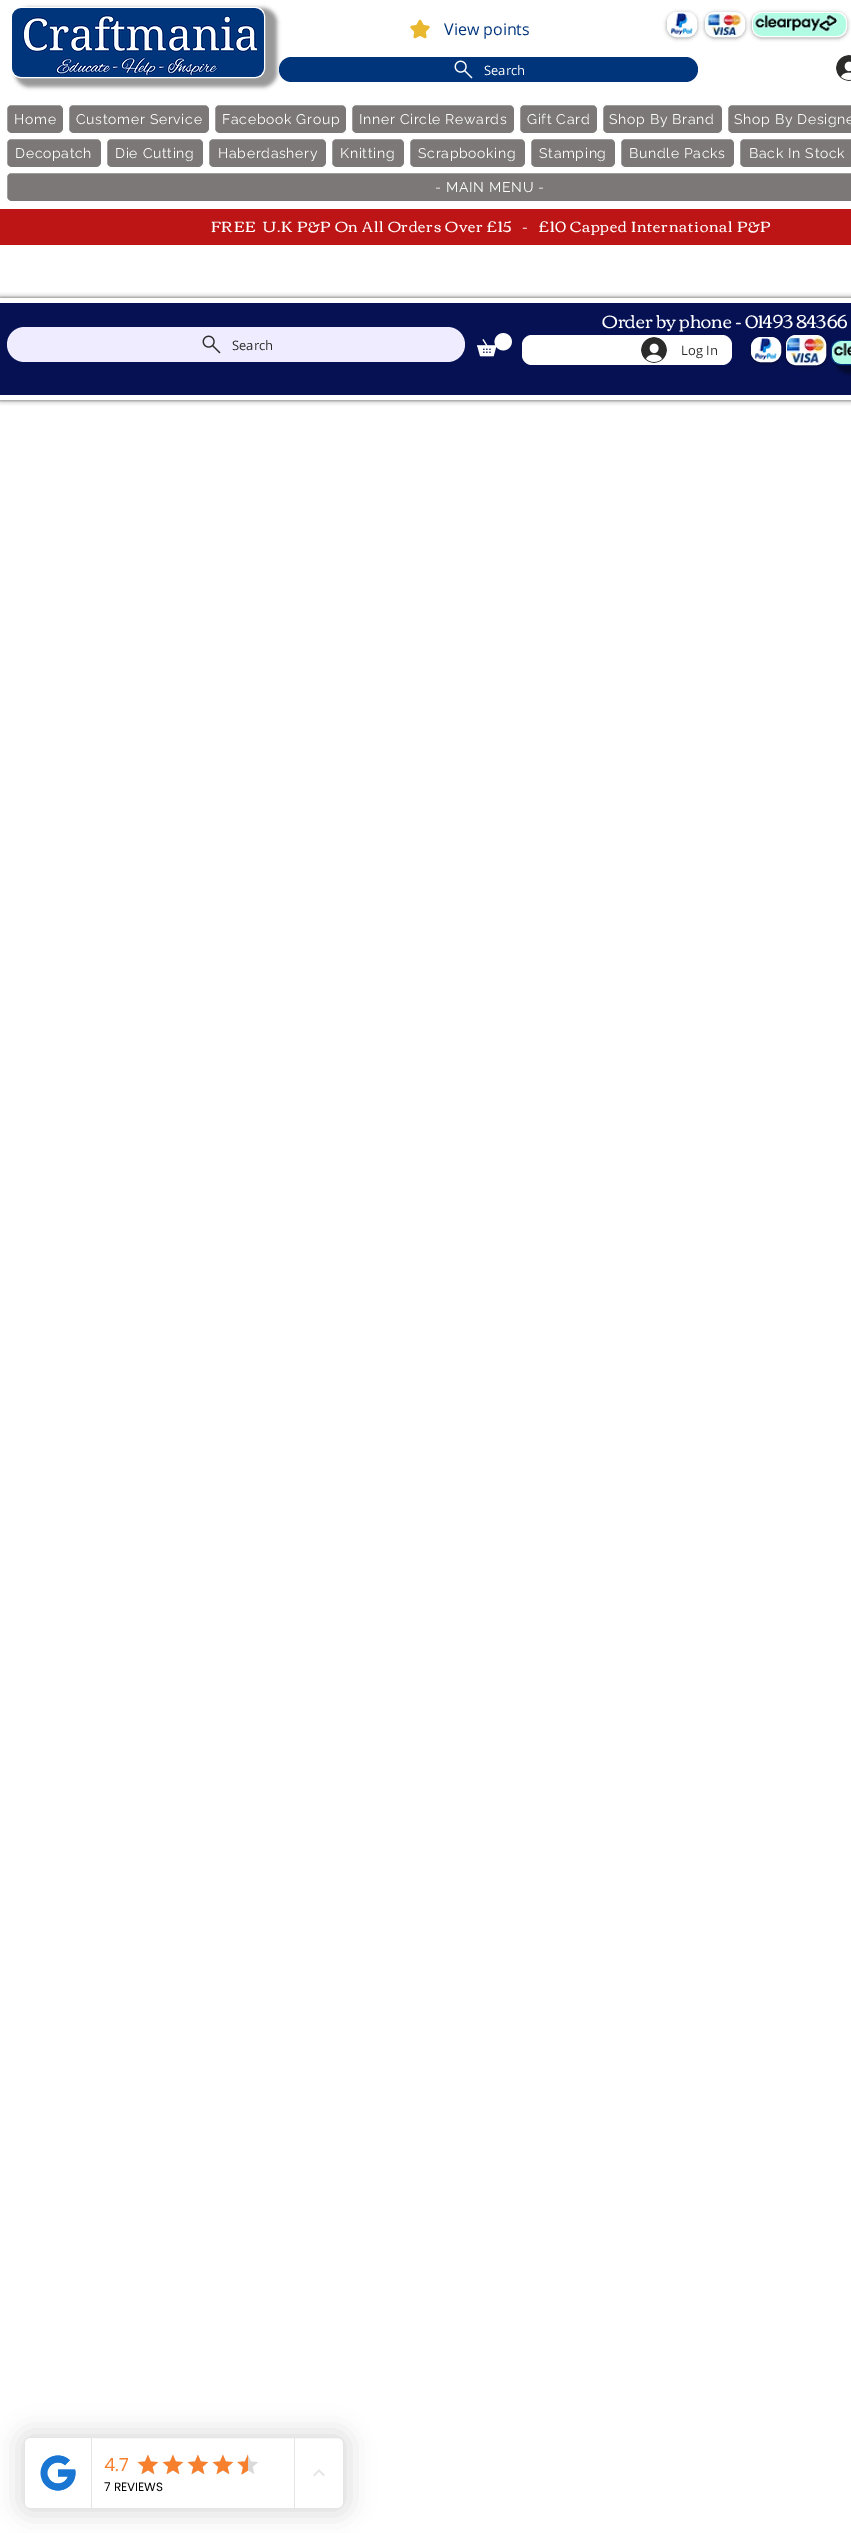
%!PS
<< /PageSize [851 2533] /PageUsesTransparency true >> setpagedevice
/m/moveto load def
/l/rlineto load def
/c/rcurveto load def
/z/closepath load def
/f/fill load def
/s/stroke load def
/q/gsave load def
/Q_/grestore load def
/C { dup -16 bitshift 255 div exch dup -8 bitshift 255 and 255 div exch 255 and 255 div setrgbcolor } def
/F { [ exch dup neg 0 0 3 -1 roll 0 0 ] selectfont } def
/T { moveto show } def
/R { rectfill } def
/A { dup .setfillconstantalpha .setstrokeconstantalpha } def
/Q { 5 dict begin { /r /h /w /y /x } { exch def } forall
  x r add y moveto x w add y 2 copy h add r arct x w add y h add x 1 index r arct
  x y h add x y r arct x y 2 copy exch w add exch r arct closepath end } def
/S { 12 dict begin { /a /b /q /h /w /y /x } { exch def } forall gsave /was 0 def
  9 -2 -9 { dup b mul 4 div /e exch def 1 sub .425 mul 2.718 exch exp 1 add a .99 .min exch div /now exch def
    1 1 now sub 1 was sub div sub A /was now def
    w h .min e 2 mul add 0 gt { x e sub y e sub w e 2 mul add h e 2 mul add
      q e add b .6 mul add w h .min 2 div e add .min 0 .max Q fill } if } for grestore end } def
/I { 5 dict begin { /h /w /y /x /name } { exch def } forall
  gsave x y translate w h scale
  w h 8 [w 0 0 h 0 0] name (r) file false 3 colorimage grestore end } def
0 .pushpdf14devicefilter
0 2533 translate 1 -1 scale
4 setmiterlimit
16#FFFFFF C
0 0 851 2533 R
16#000000 C
15 8 262 79 14 2 .4 S
16#FFFFFF C
11.5 7.5 253 70 9.5 Q q f Q_
s
(1.rgb) 12 8 252 69 I
(2.rgb) 410 19 20 20 I
/OpenSans-Regular 16 F
16#00357C C
(View points) 444 35 T
16#000000 C
667 13 30 25 10 2 .4 S
16#FFFFFF C
667.5 12.5 29 24 9.5 Q q f Q_
s
(3.rgb) 670 13 23 22 I
16#000000 C
705 13 40 25 10 2 .4 S
16#FFFFFF C
705.5 12.5 39 24 9.5 Q q f Q_
s
(4.rgb) 706 13 36 23 I
16#000000 C
752 13 95 25 10 2 .4 S
16#FFFFFF C
752.5 12.5 94 24 9.5 Q q f Q_
s
(5.rgb) 753 13 93 23 I
16#00357C C
279 57 419 25 12.5 Q f
(6.rgb) 454 60 19 19 I
/OpenSans-Regular 13 F
16#FFFFFF C
(Search) 484 75 T
(7.rgb) 836 55 15 26 I
16#7C7878 C
6.5 104.5 57 29 4.5 Q q f Q_
16#FFFFFF C
s
/Raleway-Regular 14 F
14 124 m .7 0 (Home) ashow
16#7C7878 C
68.5 104.5 141 29 4.5 Q q f Q_
16#FFFFFF C
s
76 124 m .7 0 (Customer Service) ashow
16#7C7878 C
214.5 104.5 132 29 4.5 Q q f Q_
16#FFFFFF C
s
222 124 m .7 0 (Facebook Group) ashow
16#7C7878 C
351.5 104.5 163 29 4.5 Q q f Q_
16#FFFFFF C
s
359 124 m .7 0 (Inner Circle Rewards) ashow
16#7C7878 C
519.5 104.5 78 29 4.5 Q q f Q_
16#FFFFFF C
s
527 124 m .7 0 (Gift Card) ashow
16#7C7878 C
602.5 104.5 120 29 4.5 Q q f Q_
16#FFFFFF C
s
609 124 m .7 0 (Shop By Brand) ashow
16#7C7878 C
727.5 104.5 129 29 4.5 Q q f Q_
16#FFFFFF C
s
734 124 m .7 0 (Shop By Designe) ashow
16#7C7878 C
6.5 138.5 95 29 4.5 Q q f Q_
16#FFFFFF C
s
15 158 m .7 0 (Decopatch) ashow
16#7C7878 C
106.5 138.5 97 29 4.5 Q q f Q_
16#FFFFFF C
s
115 158 m .7 0 (Die Cutting) ashow
16#7C7878 C
208.5 138.5 118 29 4.5 Q q f Q_
16#FFFFFF C
s
218 158 m .7 0 (Haberdashery) ashow
16#7C7878 C
331.5 138.5 73 29 4.5 Q q f Q_
16#FFFFFF C
s
340 158 m .7 0 (Knitting) ashow
16#7C7878 C
409.5 138.5 116 29 4.5 Q q f Q_
16#FFFFFF C
s
418 158 m .7 0 (Scrapbooking) ashow
16#7C7878 C
530.5 138.5 85 29 4.5 Q q f Q_
16#FFFFFF C
s
539 158 m .7 0 (Stamping) ashow
16#7C7878 C
620.5 138.5 114 29 4.5 Q q f Q_
16#FFFFFF C
s
629 158 m .7 0 (Bundle Packs) ashow
16#7C7878 C
739.5 138.5 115 29 4.5 Q q f Q_
16#FFFFFF C
s
749 158 m .7 0 (Back In Stock) ashow
16#7C7878 C
6.5 172.5 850 29 4.5 Q q f Q_
16#FFFFFF C
s
435 192 m .7 0 (- MAIN MENU -) ashow
16#BD1515 C
0 209 851 36 R
/Corben-Regular 15 F
16#FFFFFF C
211 232 m .75 0 (FREE  U.K P&P On All Orders Over £15   -   £10 Capped International P&P) ashow
q
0 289 m 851 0 l 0 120 l -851 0 l z 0 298 m 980 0 l 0 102 l -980 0 l z eoclip newpath
16#000000 C
0 298 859 102 0 2.5 .7 S
Q_
16#061154 C
0 303 851 92 R
/Corben-Regular 18 F
16#FFFFFF C
(Order by phone - 01493 84366) 602 328 T
16#EEECFE C
7 327 458 35 17.5 Q f
(8.rgb) 202 335 19 19 I
/OpenSans-Regular 13 F
16#2C2C2B C
(Search) 232 350 T
(9.rgb) 477 333 35 24 I
16#FFFFFF C
522 335 210 30 10 Q f
(10.rgb) 641 337 26 26 I
16#2C2C2B C
(Log In) 681 355 T
16#000000 C
751 338 30 25 10 2 .4 S
16#FFFFFF C
751.5 337.5 29 24 9.5 Q q f Q_
s
(11.rgb) 754 338 23 22 I
16#000000 C
786 336 40 30 10 2 .4 S
16#FFFFFF C
786.5 335.5 39 29 9.5 Q q f Q_
s
(12.rgb) 787 336 38 28 I
16#000000 C
835 341 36 33 14 2 .4 S
16#00357C C
831.5 340.5 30 24 9.5 Q q f Q_
s
(13.rgb) 832 341 19 23 I
16#000000 C
18 2431 332 84 12 12 .12 S
16#FFFFFF C
24.5 2437.5 319 71 5.5 Q q f Q_
16#E5E5E5 C
s
16#FFFFFF C
31 2438 m 61 0 l 0 70 l -61 0 l -3.5 0 -6 -2.5 -6 -6 c 0 -58 l 0 -3.5 2.5 -6 6 -6 c z f
16#E5E5E5 C
91 2438 1 70 R
(14.rgb) 40 2455 36 36 I
294 2438 1 70 R
/Poppins-Regular 18 F
16#F7802F C
(4.7) 104 2471 T
(16.rgb) 137 2455 21 19 I
(15.rgb) 137 2454 22 21 I
(16.rgb) 162 2455 21 19 I
(15.rgb) 162 2454 22 21 I
(16.rgb) 187 2455 21 19 I
(15.rgb) 187 2454 22 21 I
(16.rgb) 212 2455 21 19 I
(15.rgb) 212 2454 22 21 I
(16.rgb) 237 2455 21 19 I
248 2454.5 m -3 7 l -7.5 .5 l 5.5 5 l -1.5 7.5 l 6.5 -4 l z f
/Poppins-Regular 12 F
16#000000 C
(7 REVIEWS) 104 2491 T
(17.rgb) 313 2469 12 8 I
.poppdf14devicefilter showpage
